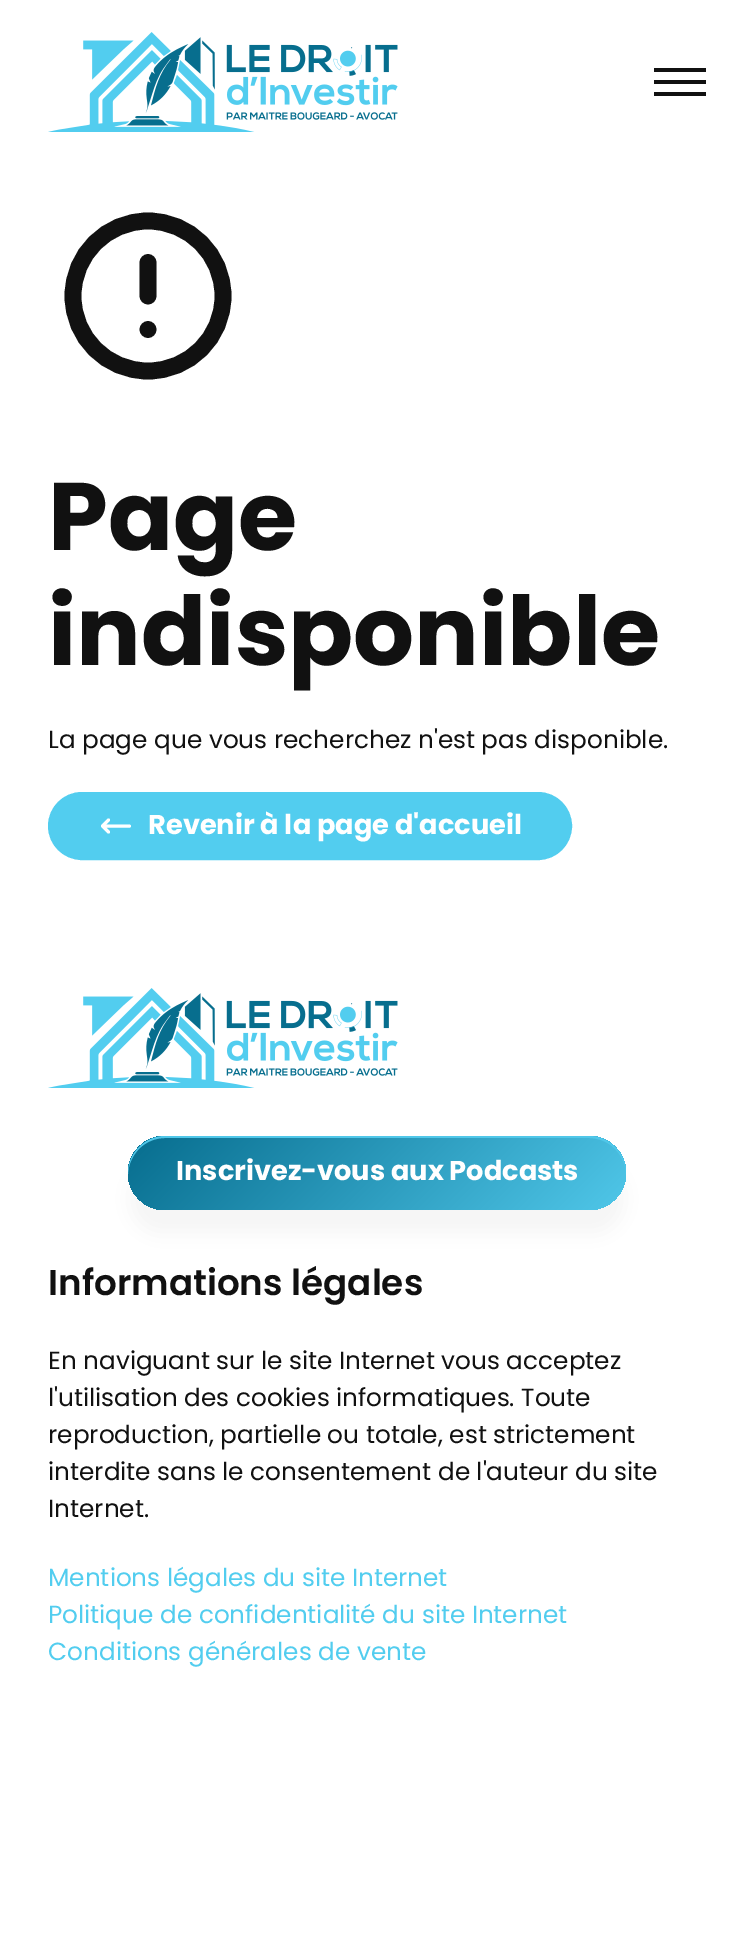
%!PS
<< /PageSize [753 1947] /PageUsesTransparency true >> setpagedevice
/m/moveto load def
/l/rlineto load def
/c/rcurveto load def
/z/closepath load def
/f/fill load def
/s/stroke load def
/q/gsave load def
/Q_/grestore load def
/w/setlinewidth load def
/C { dup -16 bitshift 255 div exch dup -8 bitshift 255 and 255 div exch 255 and 255 div setrgbcolor } def
/F { [ exch dup neg 0 0 3 -1 roll 0 0 ] selectfont } def
/T { moveto show } def
/R { rectfill } def
/A { dup .setfillconstantalpha .setstrokeconstantalpha } def
/Q { 5 dict begin { /r /h /w /y /x } { exch def } forall
  x r add y moveto x w add y 2 copy h add r arct x w add y h add x 1 index r arct
  x y h add x y r arct x y 2 copy exch w add exch r arct closepath end } def
/S { 12 dict begin { /a /b /q /h /w /y /x } { exch def } forall gsave /was 0 def
  9 -2 -9 { dup b mul 4 div /e exch def 1 sub .425 mul 2.718 exch exp 1 add a .99 .min exch div /now exch def
    1 1 now sub 1 was sub div sub A /was now def
    w h .min e 2 mul add 0 gt { x e sub y e sub w e 2 mul add h e 2 mul add
      q e add b .6 mul add w h .min 2 div e add .min 0 .max Q fill } if } for grestore end } def
/I { 5 dict begin { /h /w /y /x /name } { exch def } forall
  gsave x y translate w h scale
  w h 8 [w 0 0 h 0 0] name (r) file false 3 colorimage grestore end } def
0 .pushpdf14devicefilter
0 1947 translate 1 -1 scale
4 setmiterlimit
16#FFFFFF C
0 0 753 1947 R
(1.rgb) 48 32 350 100 I
16#111111 C
654 68 52 4 R
654 80 52 4 R
654 92 52 4 R
16.7 w
1 setlinecap
1 setlinejoin
148 262.5 m 0 33.5 l 148 329.5 m 0 0 l 223 296 m 0 41.5 -33.5 75 -75 75 c -41.5 0 -75 -33.5 -75 -75 c 0 -41.5 33.5 -75 75 -75 c 41.5 0 75 33.5 75 75 c z s
/Poppins-Bold 96 F
(Page) 48 550 T
(indisponible) 48 665 T
/Poppins-Regular 24.75 F
(La page que vous recherchez n'est pas disponible.) 48 748 T
16#52CDEF C
49 793 522 66 33 Q q f Q_
2 w
0 setlinecap
0 setlinejoin
s
16#FFFFFF C
3 w
1 setlinecap
1 setlinejoin
108.5 832 m -6 -6 l 102.5 826 m 6 -6 l 102.5 826 m 27 0 l s
/Poppins-Bold 27.25 F
(Revenir à la page d'accueil) 148 834 T
(1.rgb) 48 988 350 100 I
16#000000 C
128 1162 498 74 37 10 .04 S
q 128 1136 498 74 37 Q clip newpath
<< /ShadingType 2 /ColorSpace /DeviceRGB /Coords [234 1030 520 1316] /Extend [true true] /Function << /FunctionType 2 /Domain [0 1] /C0 [.027 .427 .557] /C1 [.314 .78 .914] /N 1 >> >> shfill Q_
16#50C7E9 C
165 1138 m 424 0 l 20 0 36 16 37 36 c 0 -1 l 0 -20 -17 -37 -37 -37 c -424 0 l -20 0 -37 17 -37 37 c 0 1 l 1 -20 17 -36 37 -36 c z f
16#FFFFFF C
(Inscrivez-vous aux Podcasts) 176 1180 T
/Poppins-SemiBold 35.75 F
16#111111 C
(Informations légales) 48 1295 T
/Poppins-Regular 24.75 F
(En naviguant sur le site Internet vous acceptez) 48 1369 T
(l'utilisation des cookies informatiques. Toute) 48 1406 T
(reproduction, partielle ou totale, est strictement) 48 1443 T
(interdite sans le consentement de l'auteur du site) 48 1480 T
(Internet.) 48 1517 T
16#52CDEF C
(Mentions légales du site Internet) 48 1586 T
(Politique de confidentialité du site Internet) 48 1623 T
(Conditions générales de vente) 48 1660 T
.poppdf14devicefilter showpage
